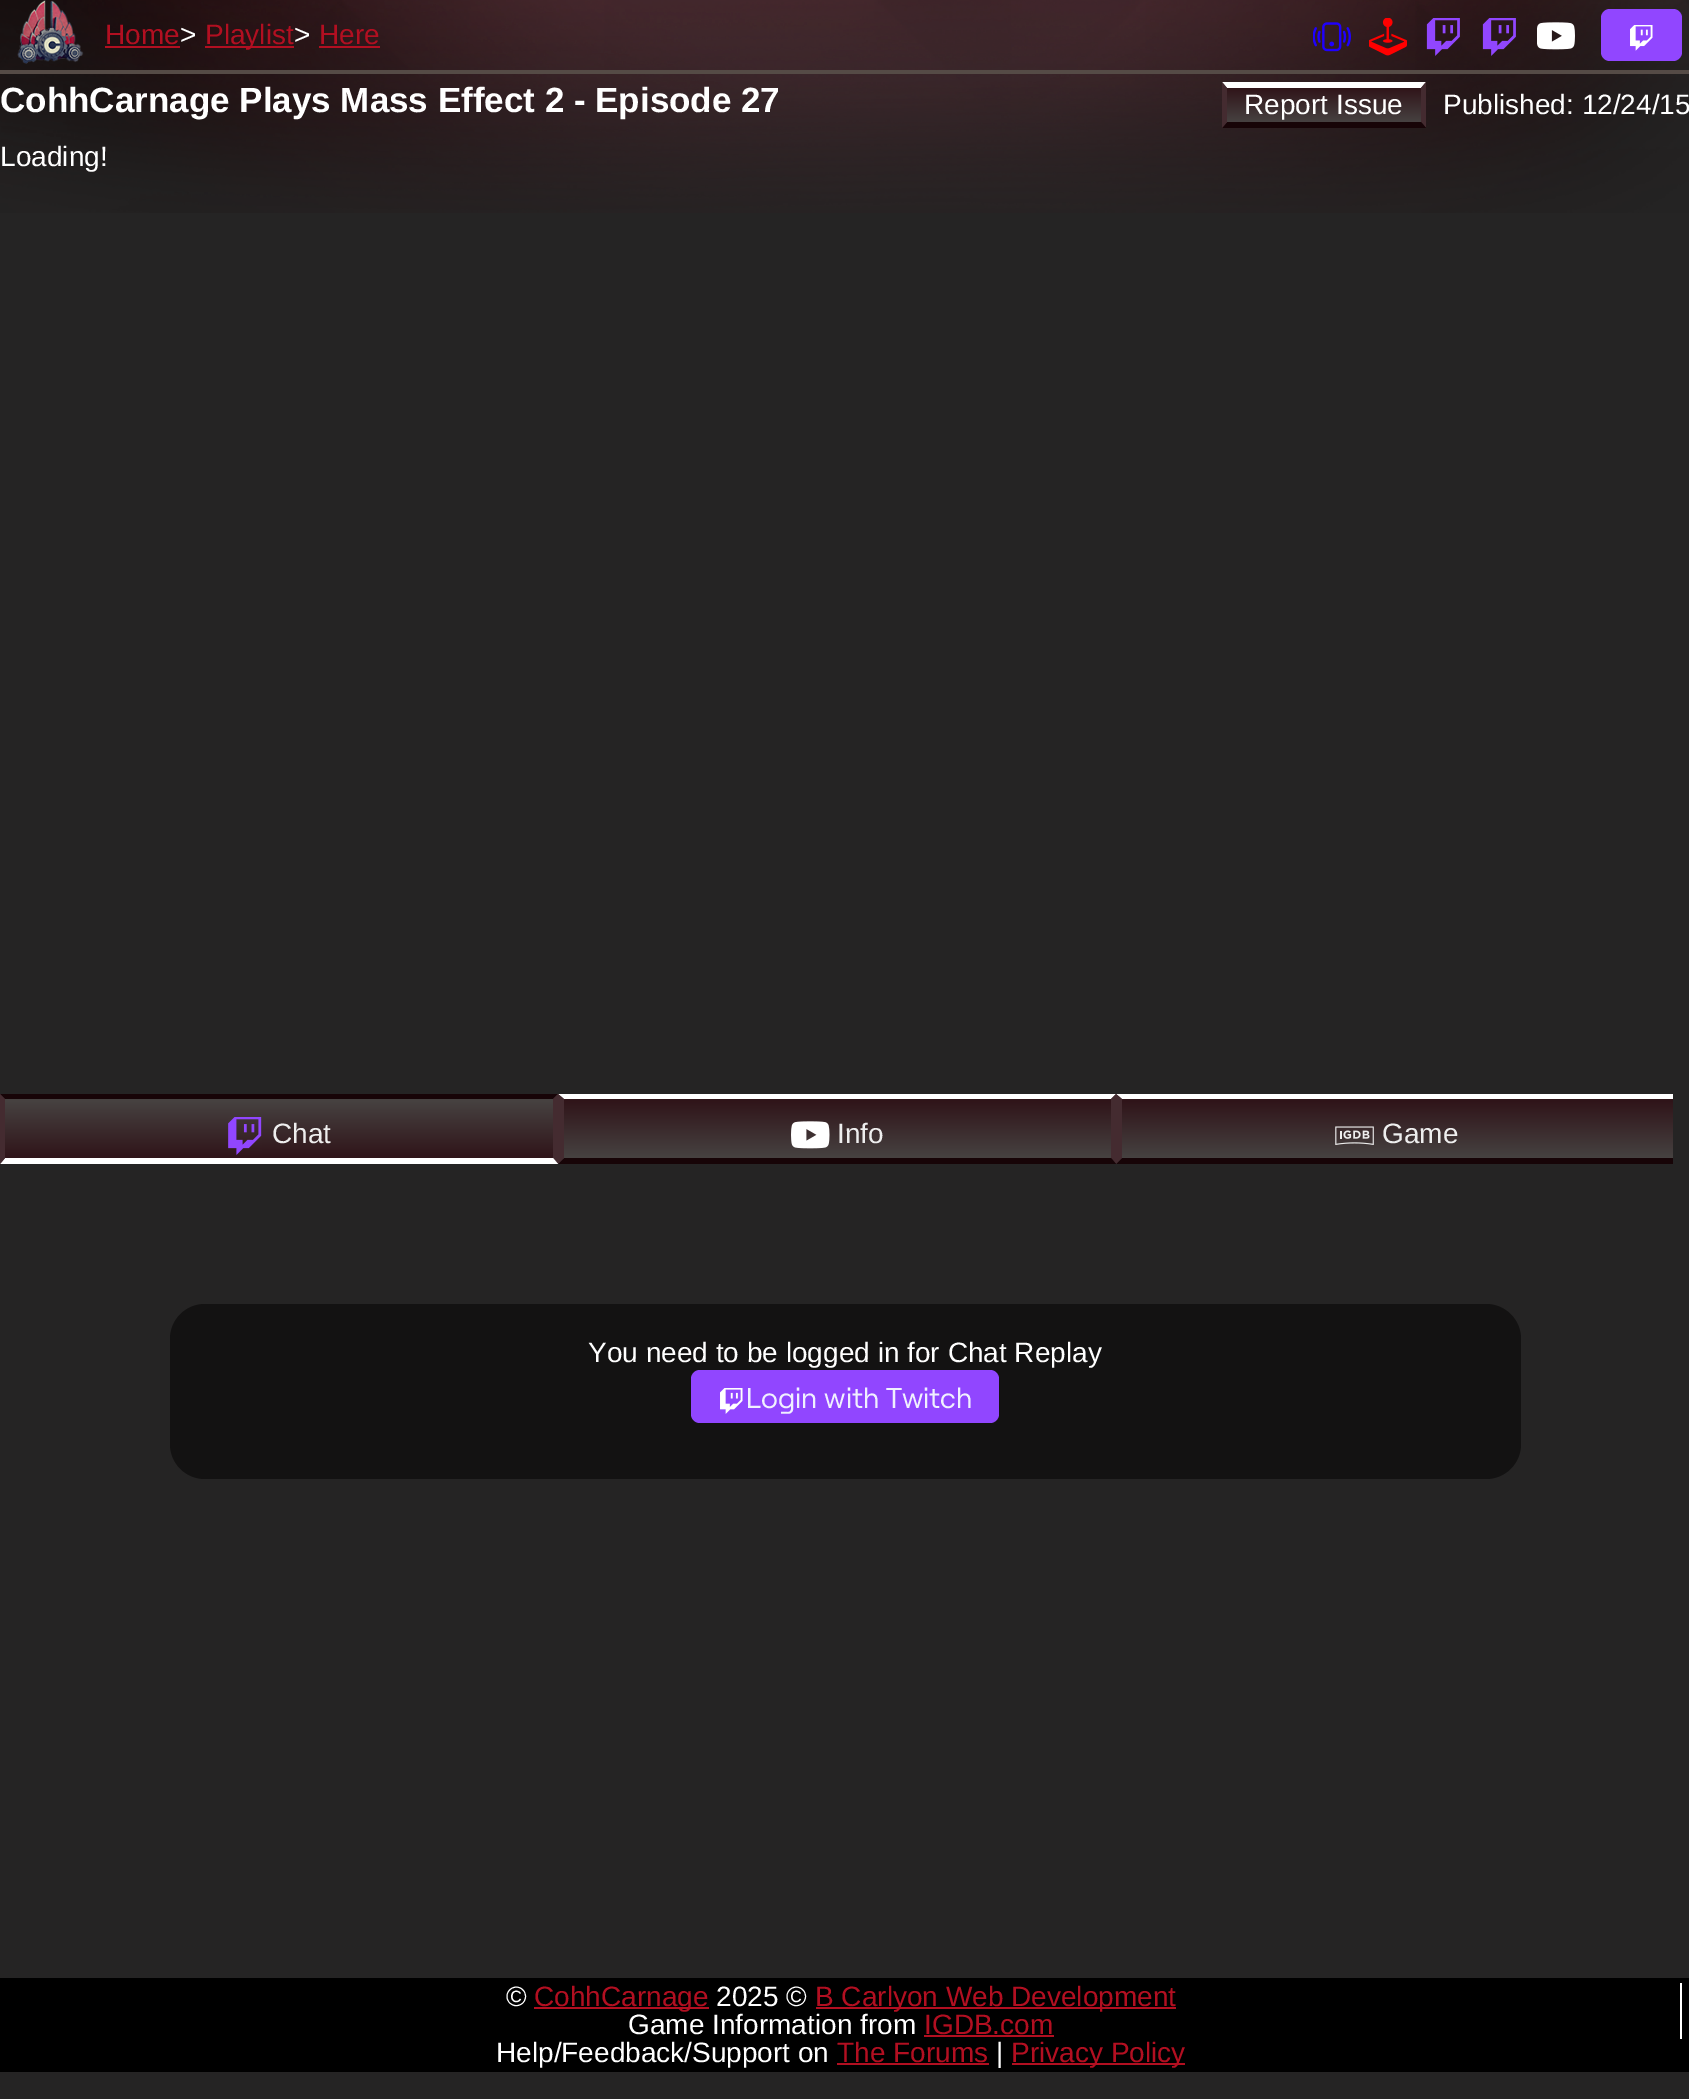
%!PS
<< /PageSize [1689 2099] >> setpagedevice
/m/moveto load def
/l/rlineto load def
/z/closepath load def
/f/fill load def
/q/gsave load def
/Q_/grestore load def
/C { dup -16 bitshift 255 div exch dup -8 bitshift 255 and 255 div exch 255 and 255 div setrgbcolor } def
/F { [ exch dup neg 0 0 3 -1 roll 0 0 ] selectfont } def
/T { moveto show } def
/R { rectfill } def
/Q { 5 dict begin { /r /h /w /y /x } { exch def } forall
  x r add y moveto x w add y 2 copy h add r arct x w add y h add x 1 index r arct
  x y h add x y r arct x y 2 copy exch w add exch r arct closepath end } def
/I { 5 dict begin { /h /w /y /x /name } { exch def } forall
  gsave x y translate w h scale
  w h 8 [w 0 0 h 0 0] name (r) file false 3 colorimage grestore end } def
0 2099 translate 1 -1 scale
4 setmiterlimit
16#252424 C
0 0 1689 2099 R
(1.rgb) 0 0 1689 213 I
(2.rgb) 17 0 67 64 I
16#554B46 C
0 70 1689 4 R
/LiberationSans-Regular 28 F
16#B20F21 C
(Home) 105 44 T
105 46 75 2 R
16#FFFFFF C
(>) 180 44 T
16#B20F21 C
205 46 89 2 R
(Playlist) 205 44 T
16#FFFFFF C
(>) 294 44 T
16#B20F21 C
(Here) 319 44 T
319 46 61 2 R
(3.rgb) 1313 22 38 30 I
(4.rgb) 1369 18 38 38 I
(5.rgb) 1426 18 34 38 I
(6.rgb) 1482 18 34 38 I
(7.rgb) 1537 22 38 28 I
16#9146FF C
1601 9 81 52 9 Q f
(8.rgb) 1630 25 23 26 I
/LiberationSans-Bold 35 F
16#FFFFFF C
(CohhCarnage Plays Mass Effect 2 - Episode 27) 0 112 T
q 1226 88 m 196 0 l 0 35 l -196 0 l z clip newpath
<< /ShadingType 2 /ColorSpace /DeviceRGB /Coords [1324 87 1324 123] /Extend [true true] /Function << /FunctionType 2 /Domain [0 1] /C0 [.184 .075 .094] /C1 [.278 .263 .259] /N 1 >> >> shfill Q_
1222 82 m 204 0 l -5 6 l -194 0 l z f
16#442B30 C
1426 82 m 0 46 l -5 -6 l 0 -34 l z f
16#170407 C
1426 128 m -204 0 l 5 -6 l 194 0 l z f
16#442B30 C
1222 128 m 0 -46 l 5 6 l 0 34 l z f
/LiberationSans-Regular 28 F
16#FFFFFF C
(Report Issue) 1244 114 T
(Published: 12/24/15) 1443 114 T
(Loading!) 0 166 T
q 4 1099 m 550 0 l 0 60 l -550 0 l z clip newpath
<< /ShadingType 2 /ColorSpace /DeviceRGB /Coords [279 1099 279 1159] /Extend [true true] /Function << /FunctionType 2 /Domain [0 1] /C0 [.278 .263 .259] /C1 [.184 .075 .094] /N 1 >> >> shfill Q_
16#170407 C
0 1094 m 558 0 l -5 5 l -548 0 l z f
16#442B30 C
558 1094 m 0 70 l -5 -6 l 0 -59 l z f
16#FFFFFF C
558 1164 m -558 0 l 5 -6 l 548 0 l z f
16#442B30 C
0 1164 m 0 -70 l 5 5 l 0 59 l z f
(9.rgb) 228 1117 34 38 I
16#EEEEEE C
(Chat) 272 1143 T
q 563 1099 m 549 0 l 0 60 l -549 0 l z clip newpath
<< /ShadingType 2 /ColorSpace /DeviceRGB /Coords [837 1099 837 1159] /Extend [true true] /Function << /FunctionType 2 /Domain [0 1] /C0 [.184 .075 .094] /C1 [.278 .263 .259] /N 1 >> >> shfill Q_
16#FFFFFF C
558 1094 m 558 0 l -5 5 l -547 0 l z f
16#442B30 C
1116 1094 m 0 70 l -5 -6 l 0 -59 l z f
16#170407 C
1116 1164 m -558 0 l 6 -6 l 547 0 l z f
16#442B30 C
558 1164 m 0 -70 l 6 5 l 0 59 l z f
(10.rgb) 791 1121 39 28 I
16#EEEEEE C
(Info) 837 1143 T
q 1122 1099 m 551 0 l 0 59 l -551 0 l z clip newpath
<< /ShadingType 2 /ColorSpace /DeviceRGB /Coords [1397 1099 1397 1159] /Extend [true true] /Function << /FunctionType 2 /Domain [0 1] /C0 [.184 .075 .094] /C1 [.278 .263 .259] /N 1 >> >> shfill Q_
16#FFFFFF C
1116 1094 m 557 0 l 0 5 l -551 0 l z f
16#170407 C
1673 1164 m -557 0 l 6 -6 l 551 0 l z f
16#442B30 C
1116 1164 m 0 -70 l 6 5 l 0 59 l z f
(11.rgb) 1335 1126 39 19 I
16#EEEEEE C
(Game) 1382 1143 T
16#131212 C
170 1304 1351 175 35 Q f
16#FFFFFF C
(You need to be logged in for Chat Replay) 588 1362 T
16#9146FF C
691 1370 308 53 9 Q f
(12.rgb) 720 1388 23 26 I
/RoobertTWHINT-Regular 28 F
16#F0F0FF C
(Login with Twitch) 746 1408 T
16#000000 C
0 1978 1689 94 R
16#FFFFFF C
1680 1983 2 56 R
/LiberationSans-Regular 28 F
(©) 506 2006 T
16#B20F21 C
534 2007 175 2 R
(CohhCarnage) 534 2006 T
16#FFFFFF C
(2025 ©) 716 2006 T
16#B20F21 C
816 2007 360 2 R
(B Carlyon Web Development) 815 2006 T
16#FFFFFF C
(Game Information from) 628 2034 T
16#B20F21 C
(IGDB.com) 924 2034 T
924 2035 130 2 R
16#FFFFFF C
(Help/Feedback/Support on) 496 2062 T
16#B20F21 C
(The Forums) 837 2062 T
837 2063 152 2 R
16#FFFFFF C
(|) 996 2062 T
16#B20F21 C
1012 2063 173 2 R
(Privacy Policy) 1011 2062 T
showpage
